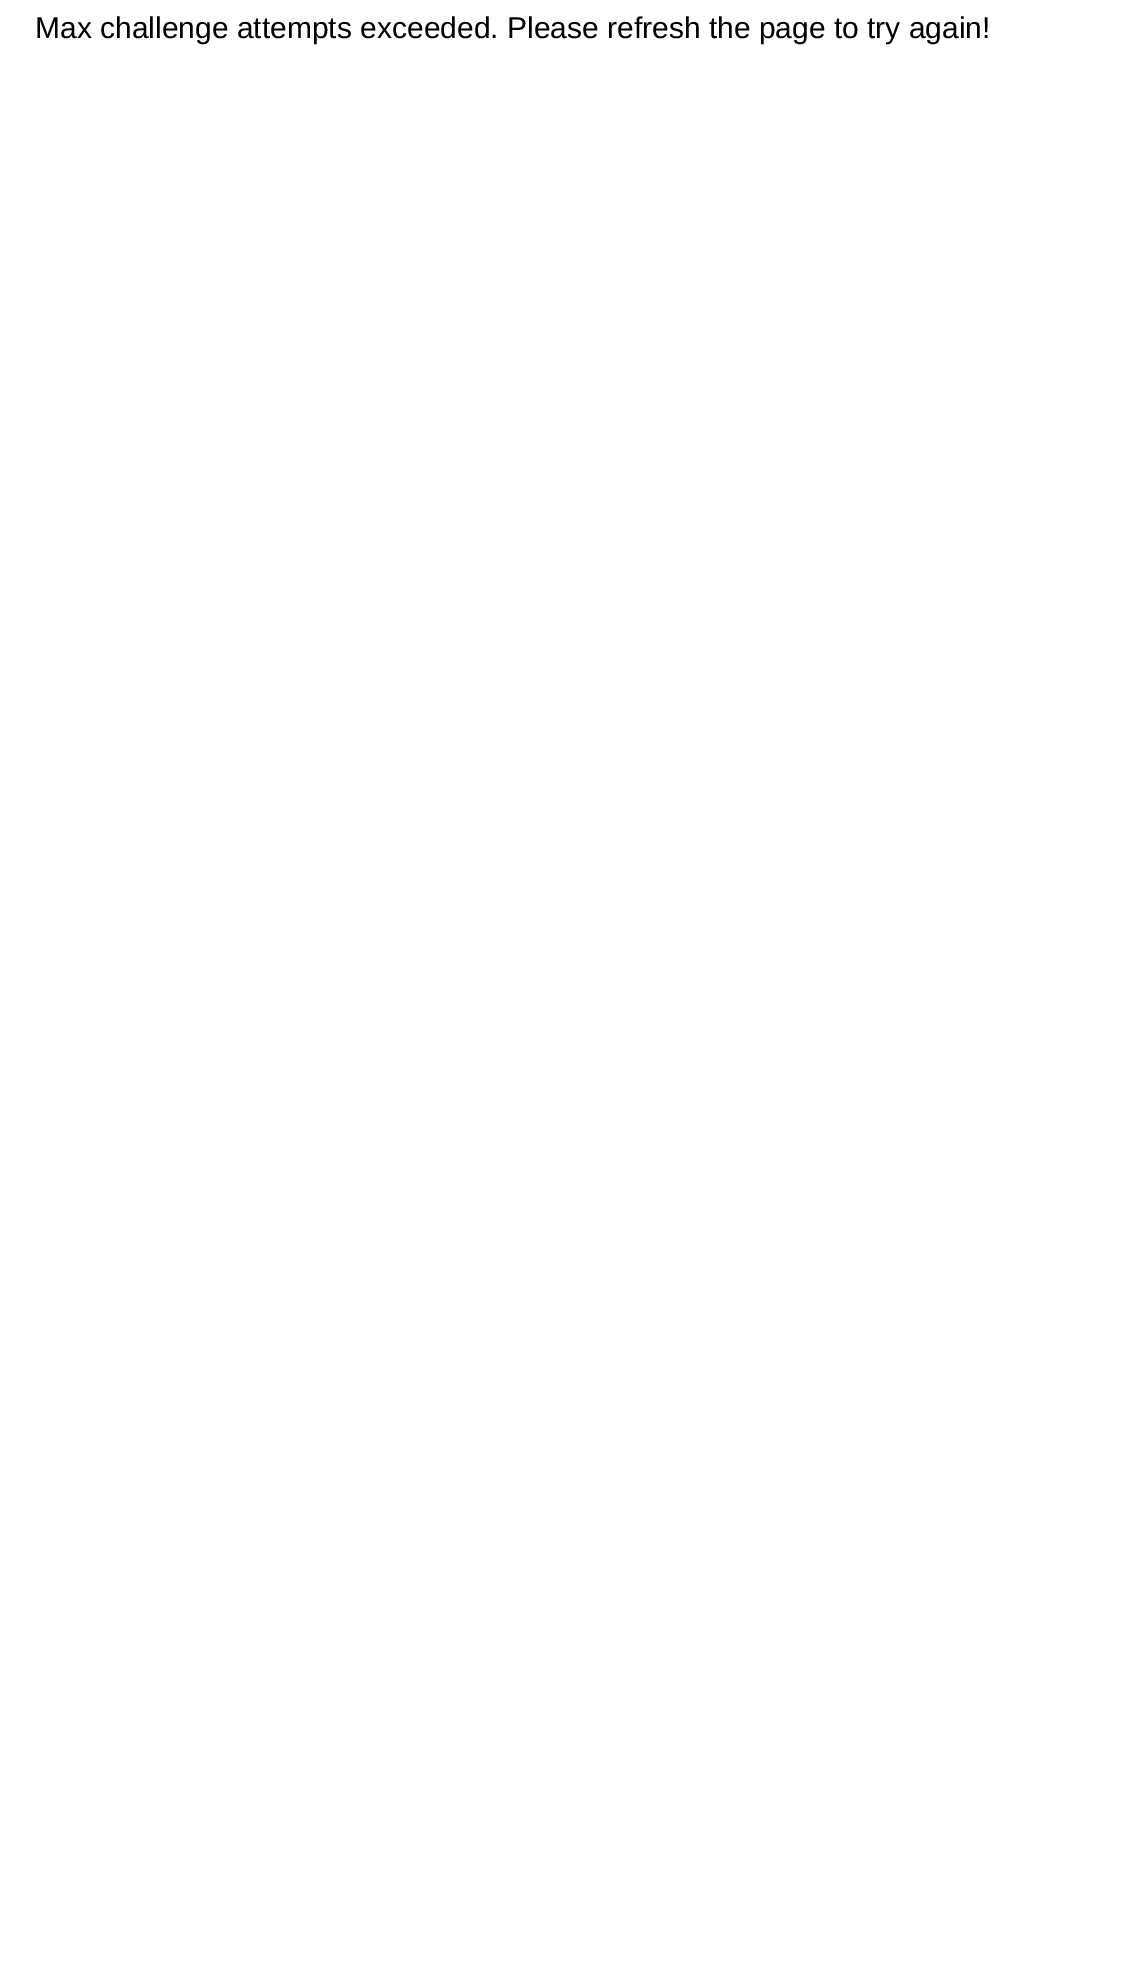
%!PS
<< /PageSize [1131 1964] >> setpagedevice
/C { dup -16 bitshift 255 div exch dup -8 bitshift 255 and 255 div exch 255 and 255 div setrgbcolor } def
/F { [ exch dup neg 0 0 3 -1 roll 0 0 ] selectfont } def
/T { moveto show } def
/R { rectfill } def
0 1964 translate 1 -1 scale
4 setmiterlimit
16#FFFFFF C
0 0 1131 1964 R
/LiberationSans-Regular 30 F
16#000000 C
(Max challenge attempts exceeded. Please refresh the page to try again!) 35 38 T
showpage
